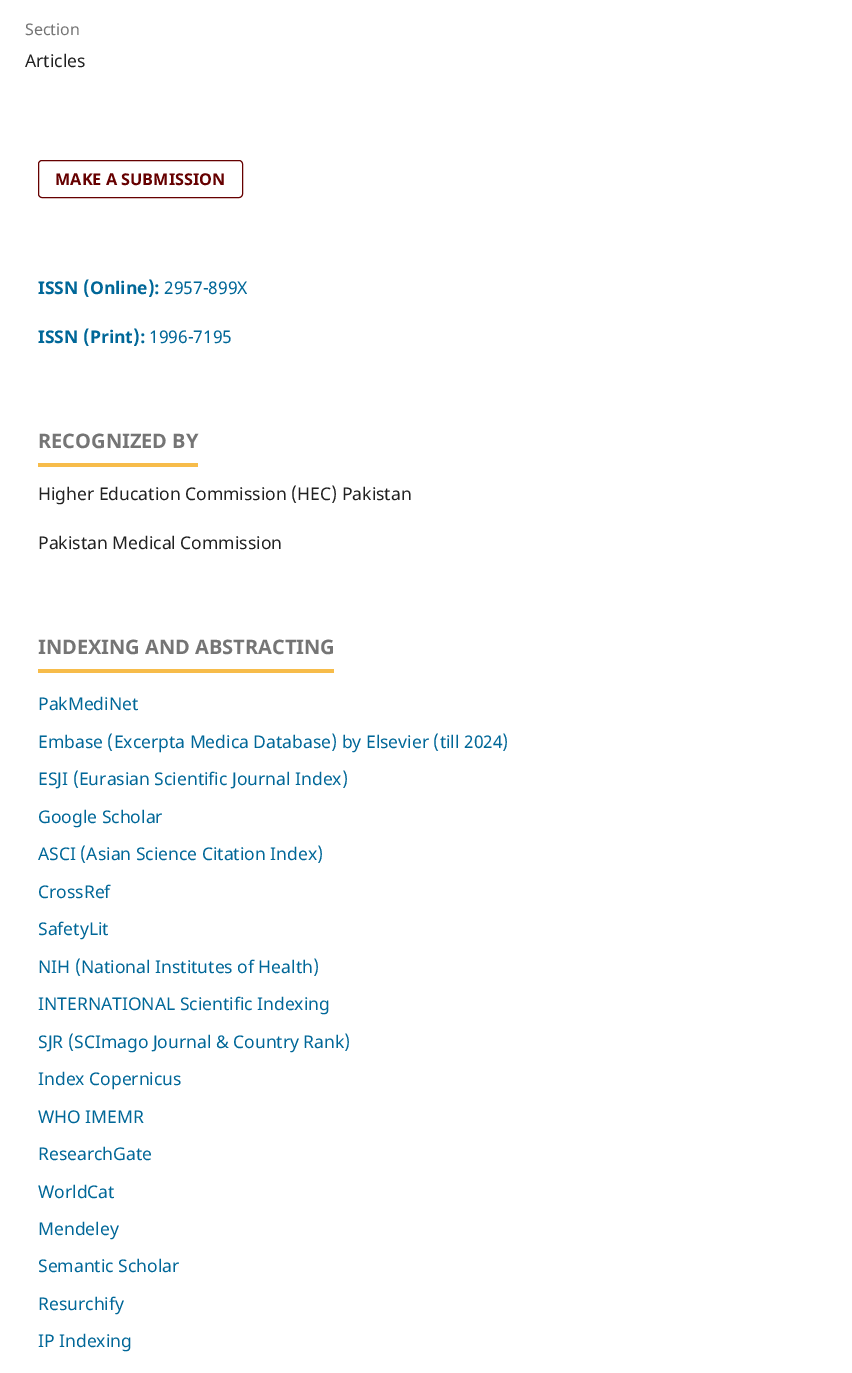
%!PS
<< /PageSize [852 1373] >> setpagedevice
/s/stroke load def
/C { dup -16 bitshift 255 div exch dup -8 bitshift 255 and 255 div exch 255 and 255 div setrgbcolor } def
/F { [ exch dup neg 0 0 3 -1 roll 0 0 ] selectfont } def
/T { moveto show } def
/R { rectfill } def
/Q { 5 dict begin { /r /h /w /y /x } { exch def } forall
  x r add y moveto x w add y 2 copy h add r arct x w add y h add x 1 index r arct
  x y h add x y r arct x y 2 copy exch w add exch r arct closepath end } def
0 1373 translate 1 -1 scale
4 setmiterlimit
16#FFFFFF C
0 0 852 1373 R
/NotoSans-Regular 16 F
16#757575 C
(Section) 25 35 T
/NotoSans-Regular 17.5 F
16#212121 C
(Articles) 25 67 T
16#660000 C
38.5 160.5 204 37 3.5 Q s
/NotoSans-Bold 16.25 F
(MAKE A SUBMISSION) 55 185 T
/NotoSans-Bold 17.5 F
16#006798 C
(ISSN \(Online\):) 38 294 T
/NotoSans-Regular 17.5 F
(2957-899X) 164 294 T
/NotoSans-Bold 17.5 F
(ISSN \(Print\):) 38 343 T
/NotoSans-Regular 17.5 F
(1996-7195) 149 343 T
16#F7BC4A C
38 463 160 4 R
/NotoSans-Bold 20 F
16#757575 C
(RECOGNIZED BY) 38 448 T
/NotoSans-Regular 17.5 F
16#212121 C
(Higher Education Commission \(HEC\) Pakistan) 38 500 T
(Pakistan Medical Commission) 38 549 T
16#F7BC4A C
38 669 296 4 R
/NotoSans-Bold 20 F
16#757575 C
(INDEXING AND ABSTRACTING) 38 654 T
/NotoSans-Regular 17.5 F
16#006798 C
(PakMediNet) 38 710 T
(Embase \(Excerpta Medica Database\) by Elsevier \(till 2024\)) 38 748 T
(ESJI \(Eurasian Scientific Journal Index\)) 38 785 T
(Google Scholar) 38 823 T
(ASCI \(Asian Science Citation Index\)) 38 860 T
(CrossRef) 38 898 T
(SafetyLit) 38 935 T
(NIH \(National Institutes of Health\)) 38 973 T
(INTERNATIONAL Scientific Indexing) 38 1010 T
(SJR \(SCImago Journal & Country Rank\)) 38 1048 T
(Index Copernicus) 38 1085 T
(WHO IMEMR) 38 1123 T
(ResearchGate) 38 1160 T
(WorldCat) 38 1198 T
(Mendeley) 38 1235 T
(Semantic Scholar) 38 1272 T
(Resurchify) 38 1310 T
(IP Indexing) 38 1347 T
showpage
